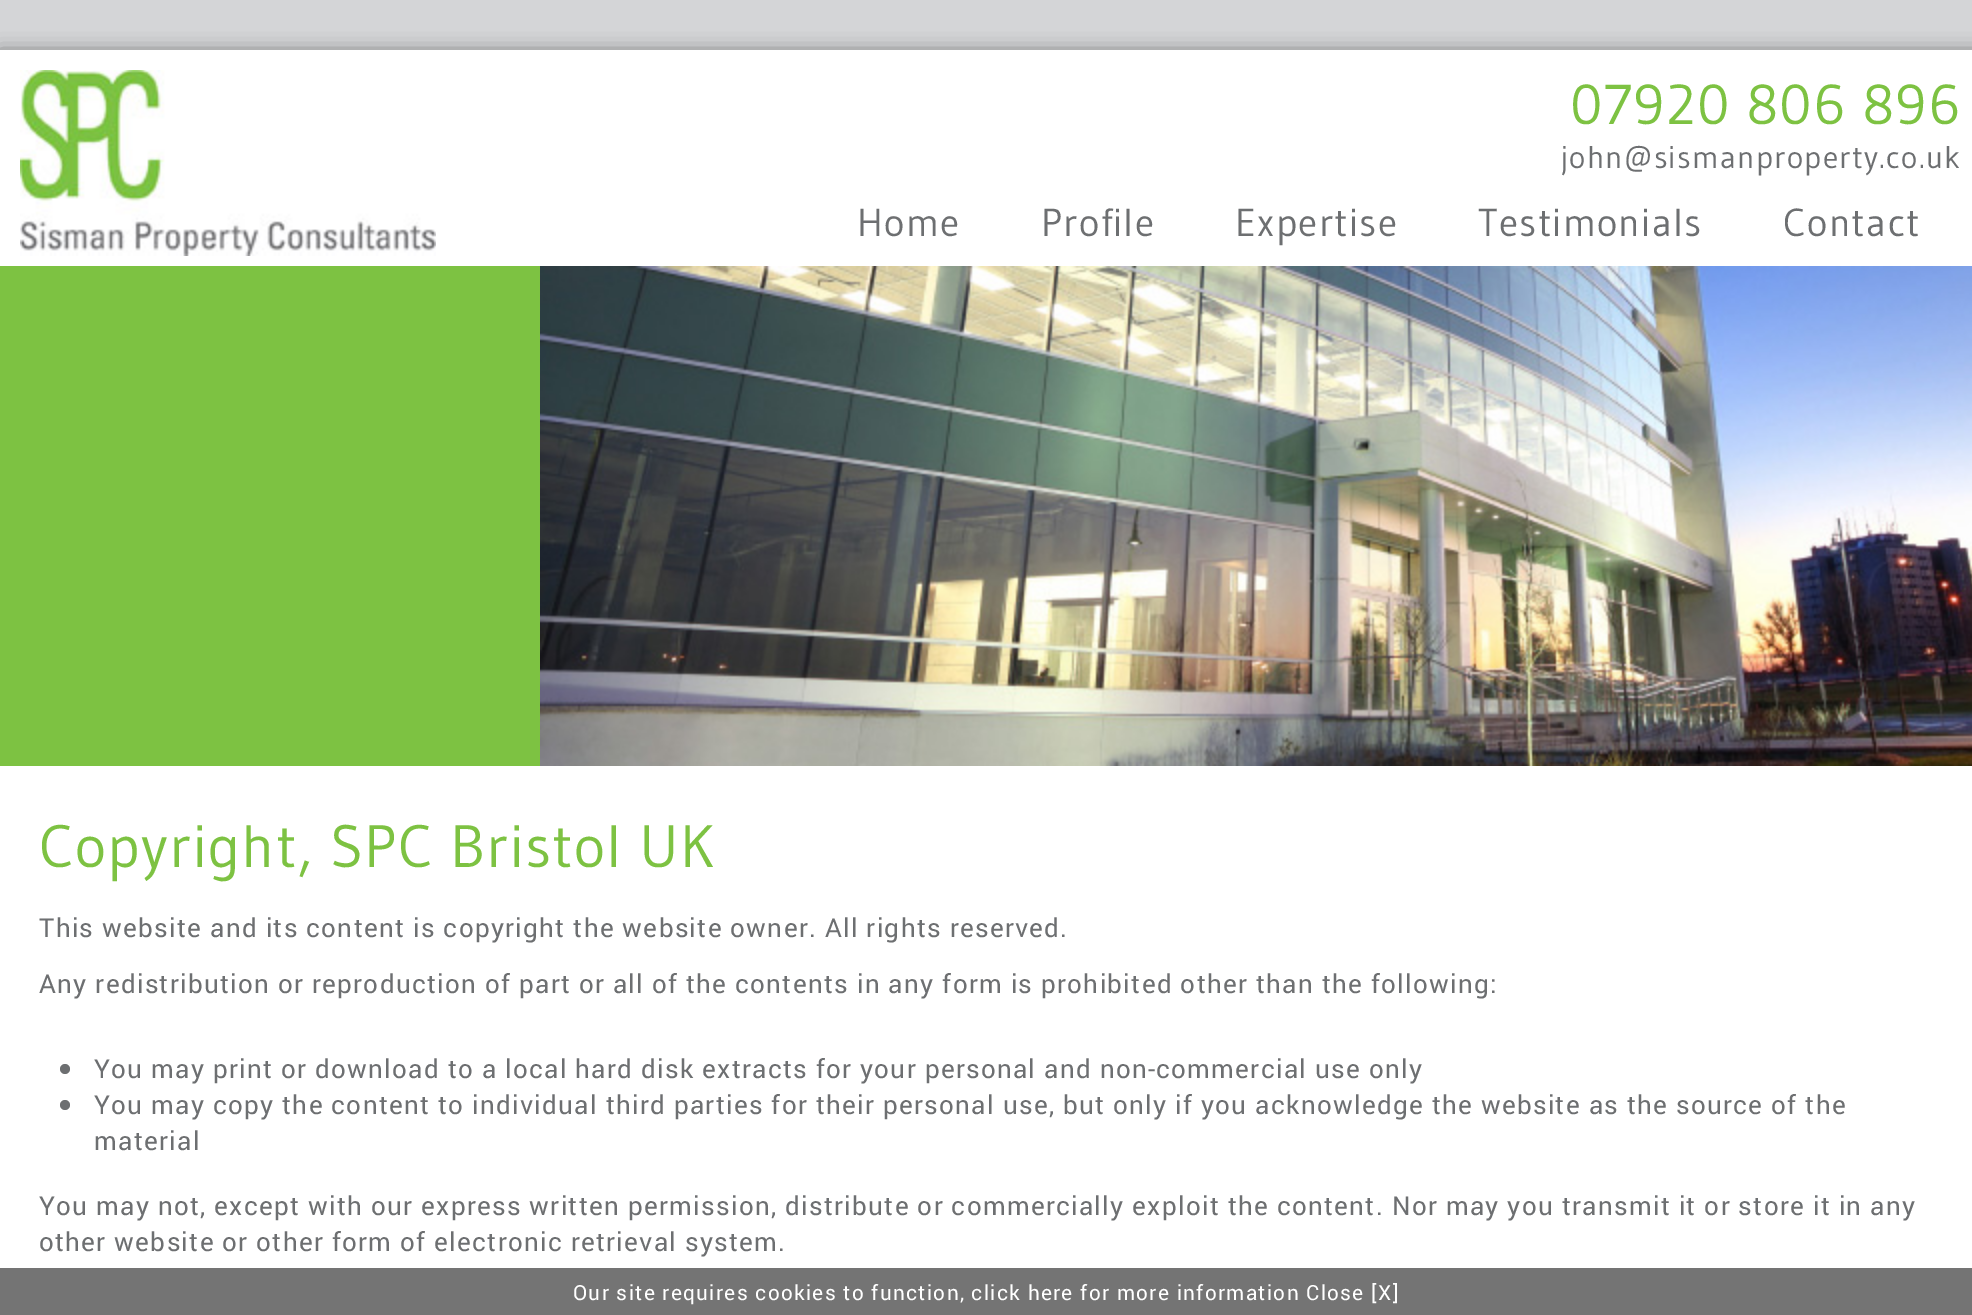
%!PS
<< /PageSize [1972 1315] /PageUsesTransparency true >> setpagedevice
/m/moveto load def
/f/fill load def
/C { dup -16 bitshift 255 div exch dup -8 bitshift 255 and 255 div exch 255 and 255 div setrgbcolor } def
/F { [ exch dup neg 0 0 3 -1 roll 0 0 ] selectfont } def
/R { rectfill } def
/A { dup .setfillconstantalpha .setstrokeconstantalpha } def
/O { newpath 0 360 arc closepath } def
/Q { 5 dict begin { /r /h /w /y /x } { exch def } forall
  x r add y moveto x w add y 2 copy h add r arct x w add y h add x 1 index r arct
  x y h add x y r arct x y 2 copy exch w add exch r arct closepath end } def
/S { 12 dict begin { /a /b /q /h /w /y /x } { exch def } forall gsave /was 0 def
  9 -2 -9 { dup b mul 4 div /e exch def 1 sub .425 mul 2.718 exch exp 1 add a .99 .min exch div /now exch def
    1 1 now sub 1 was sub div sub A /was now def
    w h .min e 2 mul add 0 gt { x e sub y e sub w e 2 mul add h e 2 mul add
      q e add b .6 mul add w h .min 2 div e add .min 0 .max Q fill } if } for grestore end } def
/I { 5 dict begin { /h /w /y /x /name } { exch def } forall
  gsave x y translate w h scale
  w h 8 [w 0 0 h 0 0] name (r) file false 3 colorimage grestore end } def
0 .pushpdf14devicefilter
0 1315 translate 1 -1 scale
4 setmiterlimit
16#D4D5D7 C
0 0 1972 1315 R
16#555555 C
0 54 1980 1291 0 10 1 S
16#FFFFFF C
0 50 1972 216 R
(1.rgb) 20 70 416 186 I
/Gudea-Regular 56 F
16#7DC242 C
1570 124 m 1.3 0 (07920 806 896) ashow
/Gudea-Regular 31.25 F
16#6D6F71 C
1561 168 m 1.3 0 (john@sismanproperty.co.uk) ashow
/Gudea-Regular 39 F
857 236 m 1.3 0 (Home) ashow
1041 236 m 1.3 0 (Profile) ashow
1235 236 m 1.3 0 (Expertise) ashow
1478 236 m 1.3 0 (Testimonials) ashow
1783 236 m 1.3 0 (Contact) ashow
16#7DC242 C
0 266 540 500 R
(2.rgb) 540 266 1432 500 I
16#FFFFFF C
0 766 1972 502 R
/Gudea-Regular 59.75 F
16#7DC242 C
39 867 m 1.3 0 (Copyright, SPC Bristol UK) ashow
/Roboto-Regular 26 F
16#6D6F71 C
39 937 m 1.3 0 (This website and its content is copyright the website owner. All rights reserved.) ashow
39 993 m 1.3 0 (Any redistribution or reproduction of part or all of the contents in any form is prohibited other than the following:) ashow
65 1069 5 O f
94 1078 m 1.3 0 (You may print or download to a local hard disk extracts for your personal and non-commercial use only) ashow
65 1105 5 O f
94 1114 m 1.3 0 (You may copy the content to individual third parties for their personal use, but only if you acknowledge the website as the source of the) ashow
94 1150 m 1.3 0 (material) ashow
39 1215 m 1.3 0 (You may not, except with our express written permission, distribute or commercially exploit the content. Nor may you transmit it or store it in any) ashow
39 1251 m 1.3 0 (other website or other form of electronic retrieval system.) ashow
16#747474 C
0 1268 1972 47 R
/Roboto-Regular 20.8 F
16#FFFFFF C
573 1300 m 1.3 0 (Our site requires cookies to function, click here for more information Close [X]) ashow
.poppdf14devicefilter showpage
